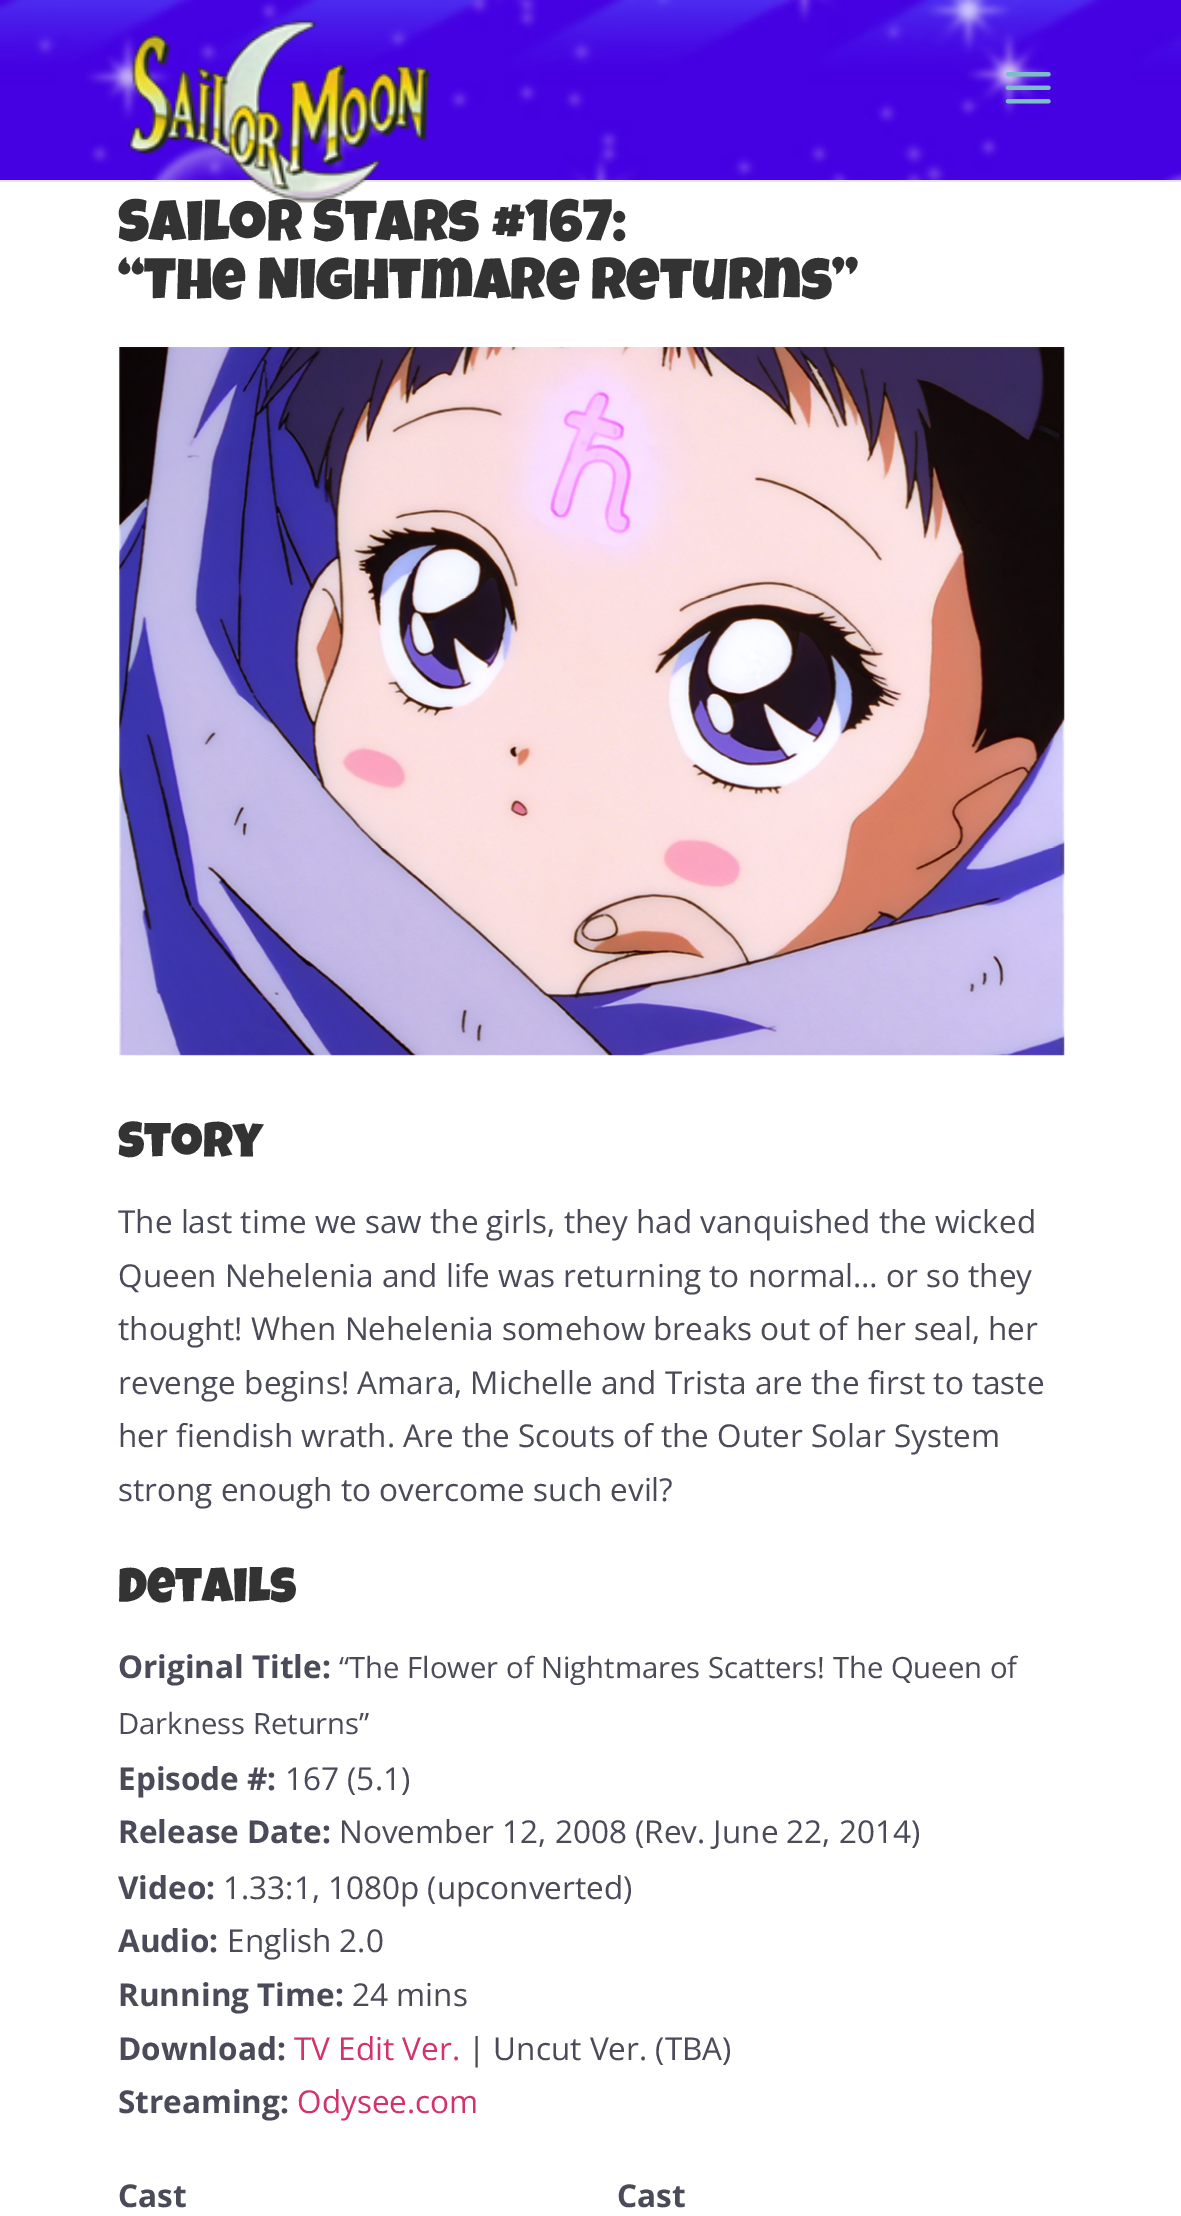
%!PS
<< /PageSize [1181 2216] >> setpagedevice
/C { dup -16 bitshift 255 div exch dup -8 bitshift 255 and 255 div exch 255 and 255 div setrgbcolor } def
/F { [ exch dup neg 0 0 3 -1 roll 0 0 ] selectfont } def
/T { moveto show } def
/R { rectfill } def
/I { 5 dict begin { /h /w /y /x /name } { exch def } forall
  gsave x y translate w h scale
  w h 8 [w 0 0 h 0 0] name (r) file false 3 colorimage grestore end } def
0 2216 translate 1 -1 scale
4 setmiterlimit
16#FFFFFF C
0 0 1181 2216 R
16#E6E6E6 C
0 180 1181 2 R
(1.rgb) 0 0 1181 180 I
/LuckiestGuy-Regular 58.5 F
16#333333 C
(Sailor Stars #167:) 118 241 T
(2.rgb) 127 19 305 184 I
(3.rgb) 1005 72 46 32 I
(“The Nightmare Returns”) 118 299 T
(4.rgb) 119 347 946 709 I
/LuckiestGuy-Regular 49.5 F
(Story) 118 1157 T
/OpenSans-Regular 31.5 F
16#4A4A59 C
(The last time we saw the girls, they had vanquished the wicked) 118 1233 T
(Queen Nehelenia and life was returning to normal… or so they) 118 1287 T
(thought! When Nehelenia somehow breaks out of her seal, her) 118 1340 T
(revenge begins! Amara, Michelle and Trista are the first to taste) 118 1394 T
(her fiendish wrath. Are the Scouts of the Outer Solar System) 118 1447 T
(strong enough to overcome such evil?) 118 1501 T
/LuckiestGuy-Regular 49.5 F
16#333333 C
(Details) 118 1602 T
/OpenSans-Bold 31.5 F
16#4A4A59 C
(Original Title:) 118 1678 T
/OpenSans-Regular 29.25 F
(“The Flower of Nightmares Scatters! The Queen of) 339 1678 T
(Darkness Returns”) 118 1734 T
/OpenSans-Bold 31.5 F
(Episode #:) 118 1790 T
/OpenSans-Regular 31.5 F
(167 \(5.1\)) 285 1790 T
/OpenSans-Bold 31.5 F
(Release Date:) 118 1843 T
/OpenSans-Regular 31.5 F
(November 12, 2008 \(Rev. June 22, 2014\)) 339 1843 T
/OpenSans-Bold 31.5 F
(Video:) 118 1899 T
/OpenSans-Regular 31.5 F
(1.33:1, 1080p \(upconverted\)) 223 1899 T
/OpenSans-Bold 31.5 F
(Audio:) 118 1952 T
/OpenSans-Regular 31.5 F
(English 2.0) 227 1952 T
/OpenSans-Bold 31.5 F
(Running Time:) 118 2006 T
/OpenSans-Regular 31.5 F
(24 mins) 352 2006 T
/OpenSans-Bold 31.5 F
(Download:) 118 2060 T
/OpenSans-Regular 31.5 F
16#D3326D C
(TV Edit Ver.) 294 2060 T
16#4A4A59 C
(| Uncut Ver. \(TBA\)) 468 2060 T
/OpenSans-Bold 31.5 F
(Streaming:) 118 2113 T
/OpenSans-Regular 31.5 F
16#D3326D C
(Odysee.com) 297 2113 T
/OpenSans-Bold 31.5 F
16#4A4A59 C
(Cast) 118 2207 T
(Cast) 617 2207 T
showpage
